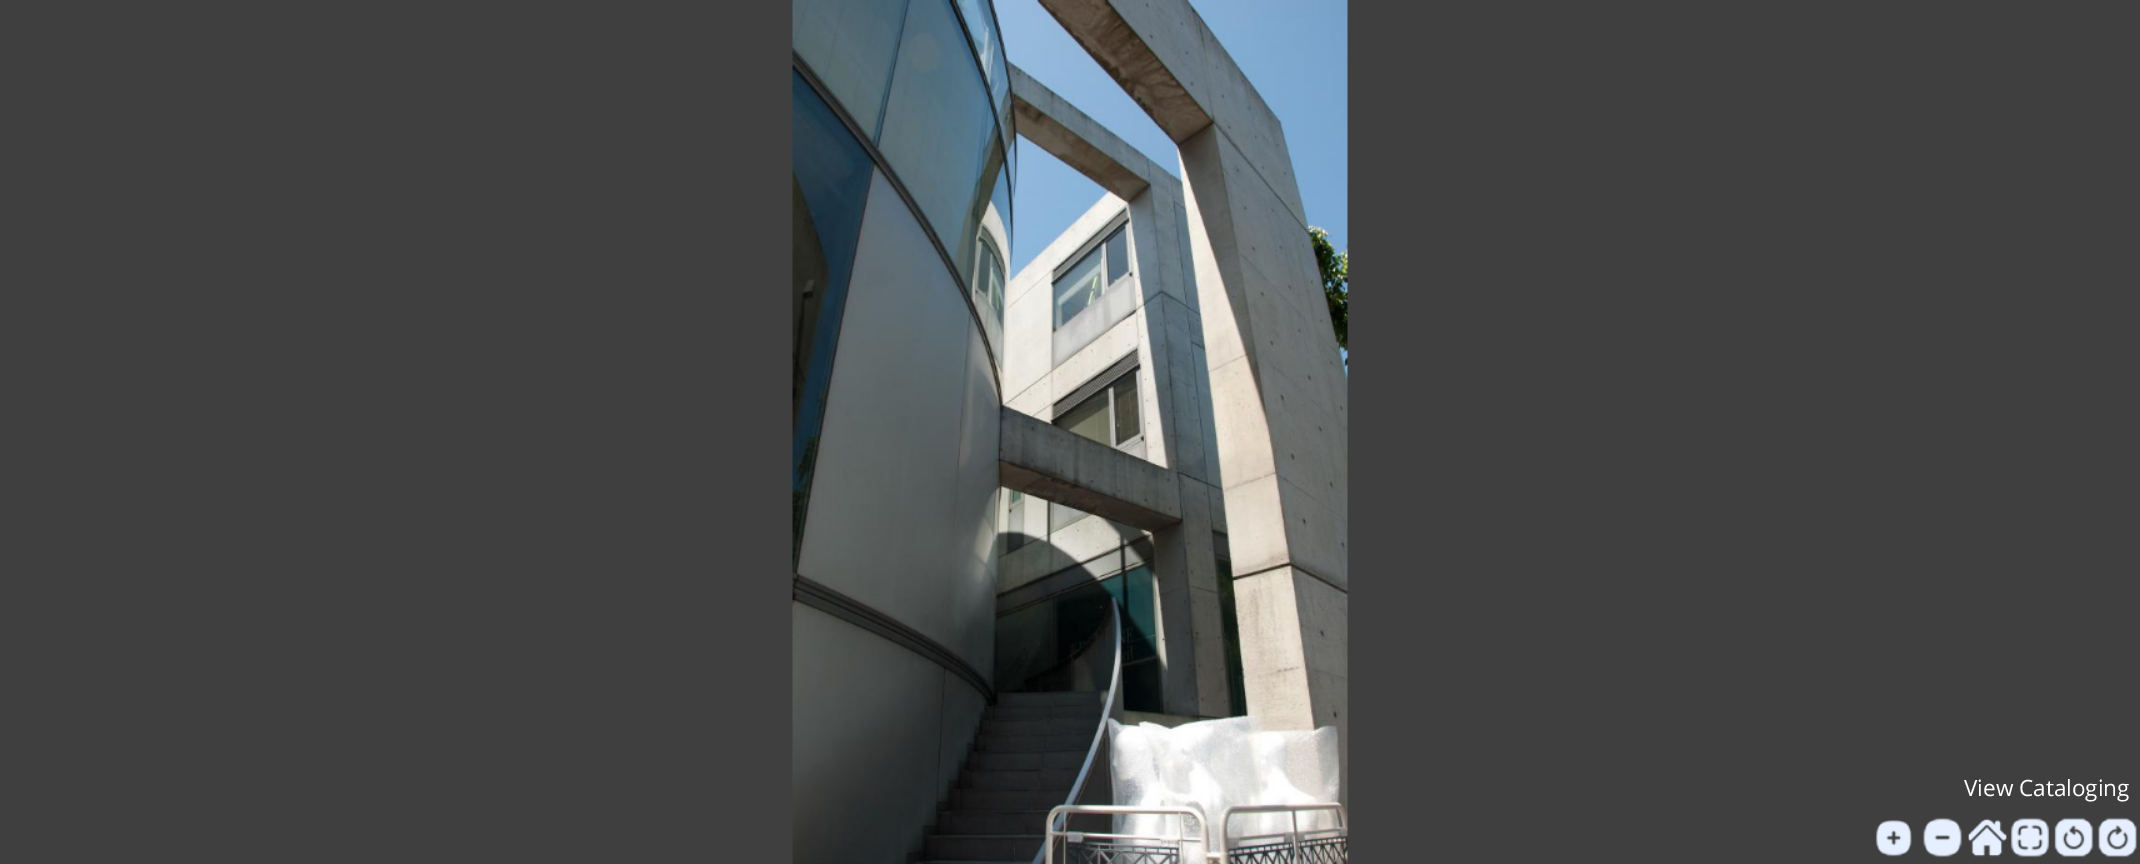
%!PS
<< /PageSize [2140 864] >> setpagedevice
/C { dup -16 bitshift 255 div exch dup -8 bitshift 255 and 255 div exch 255 and 255 div setrgbcolor } def
/F { [ exch dup neg 0 0 3 -1 roll 0 0 ] selectfont } def
/T { moveto show } def
/R { rectfill } def
/I { 5 dict begin { /h /w /y /x /name } { exch def } forall
  gsave x y translate w h scale
  w h 8 [w 0 0 h 0 0] name (r) file false 3 colorimage grestore end } def
0 864 translate 1 -1 scale
4 setmiterlimit
16#3F3F3F C
0 0 2140 864 R
(1.rgb) 792 0 556 864 I
(2.rgb) 1876 820 36 37 I
(3.rgb) 1876 820 36 36 I
(4.rgb) 1922 817 41 41 I
(5.rgb) 1923 818 39 39 I
(6.rgb) 1968 818 39 39 I
(7.rgb) 1968 819 39 37 I
(8.rgb) 2010 817 40 41 I
(9.rgb) 2011 818 38 39 I
(10.rgb) 2054 817 40 41 I
(11.rgb) 2054 818 39 39 I
(12.rgb) 2097 817 41 41 I
(13.rgb) 2098 818 39 39 I
/OpenSans-Regular 22.5 F
16#FFFFFF C
(View Cataloging) 1964 796 T
showpage
